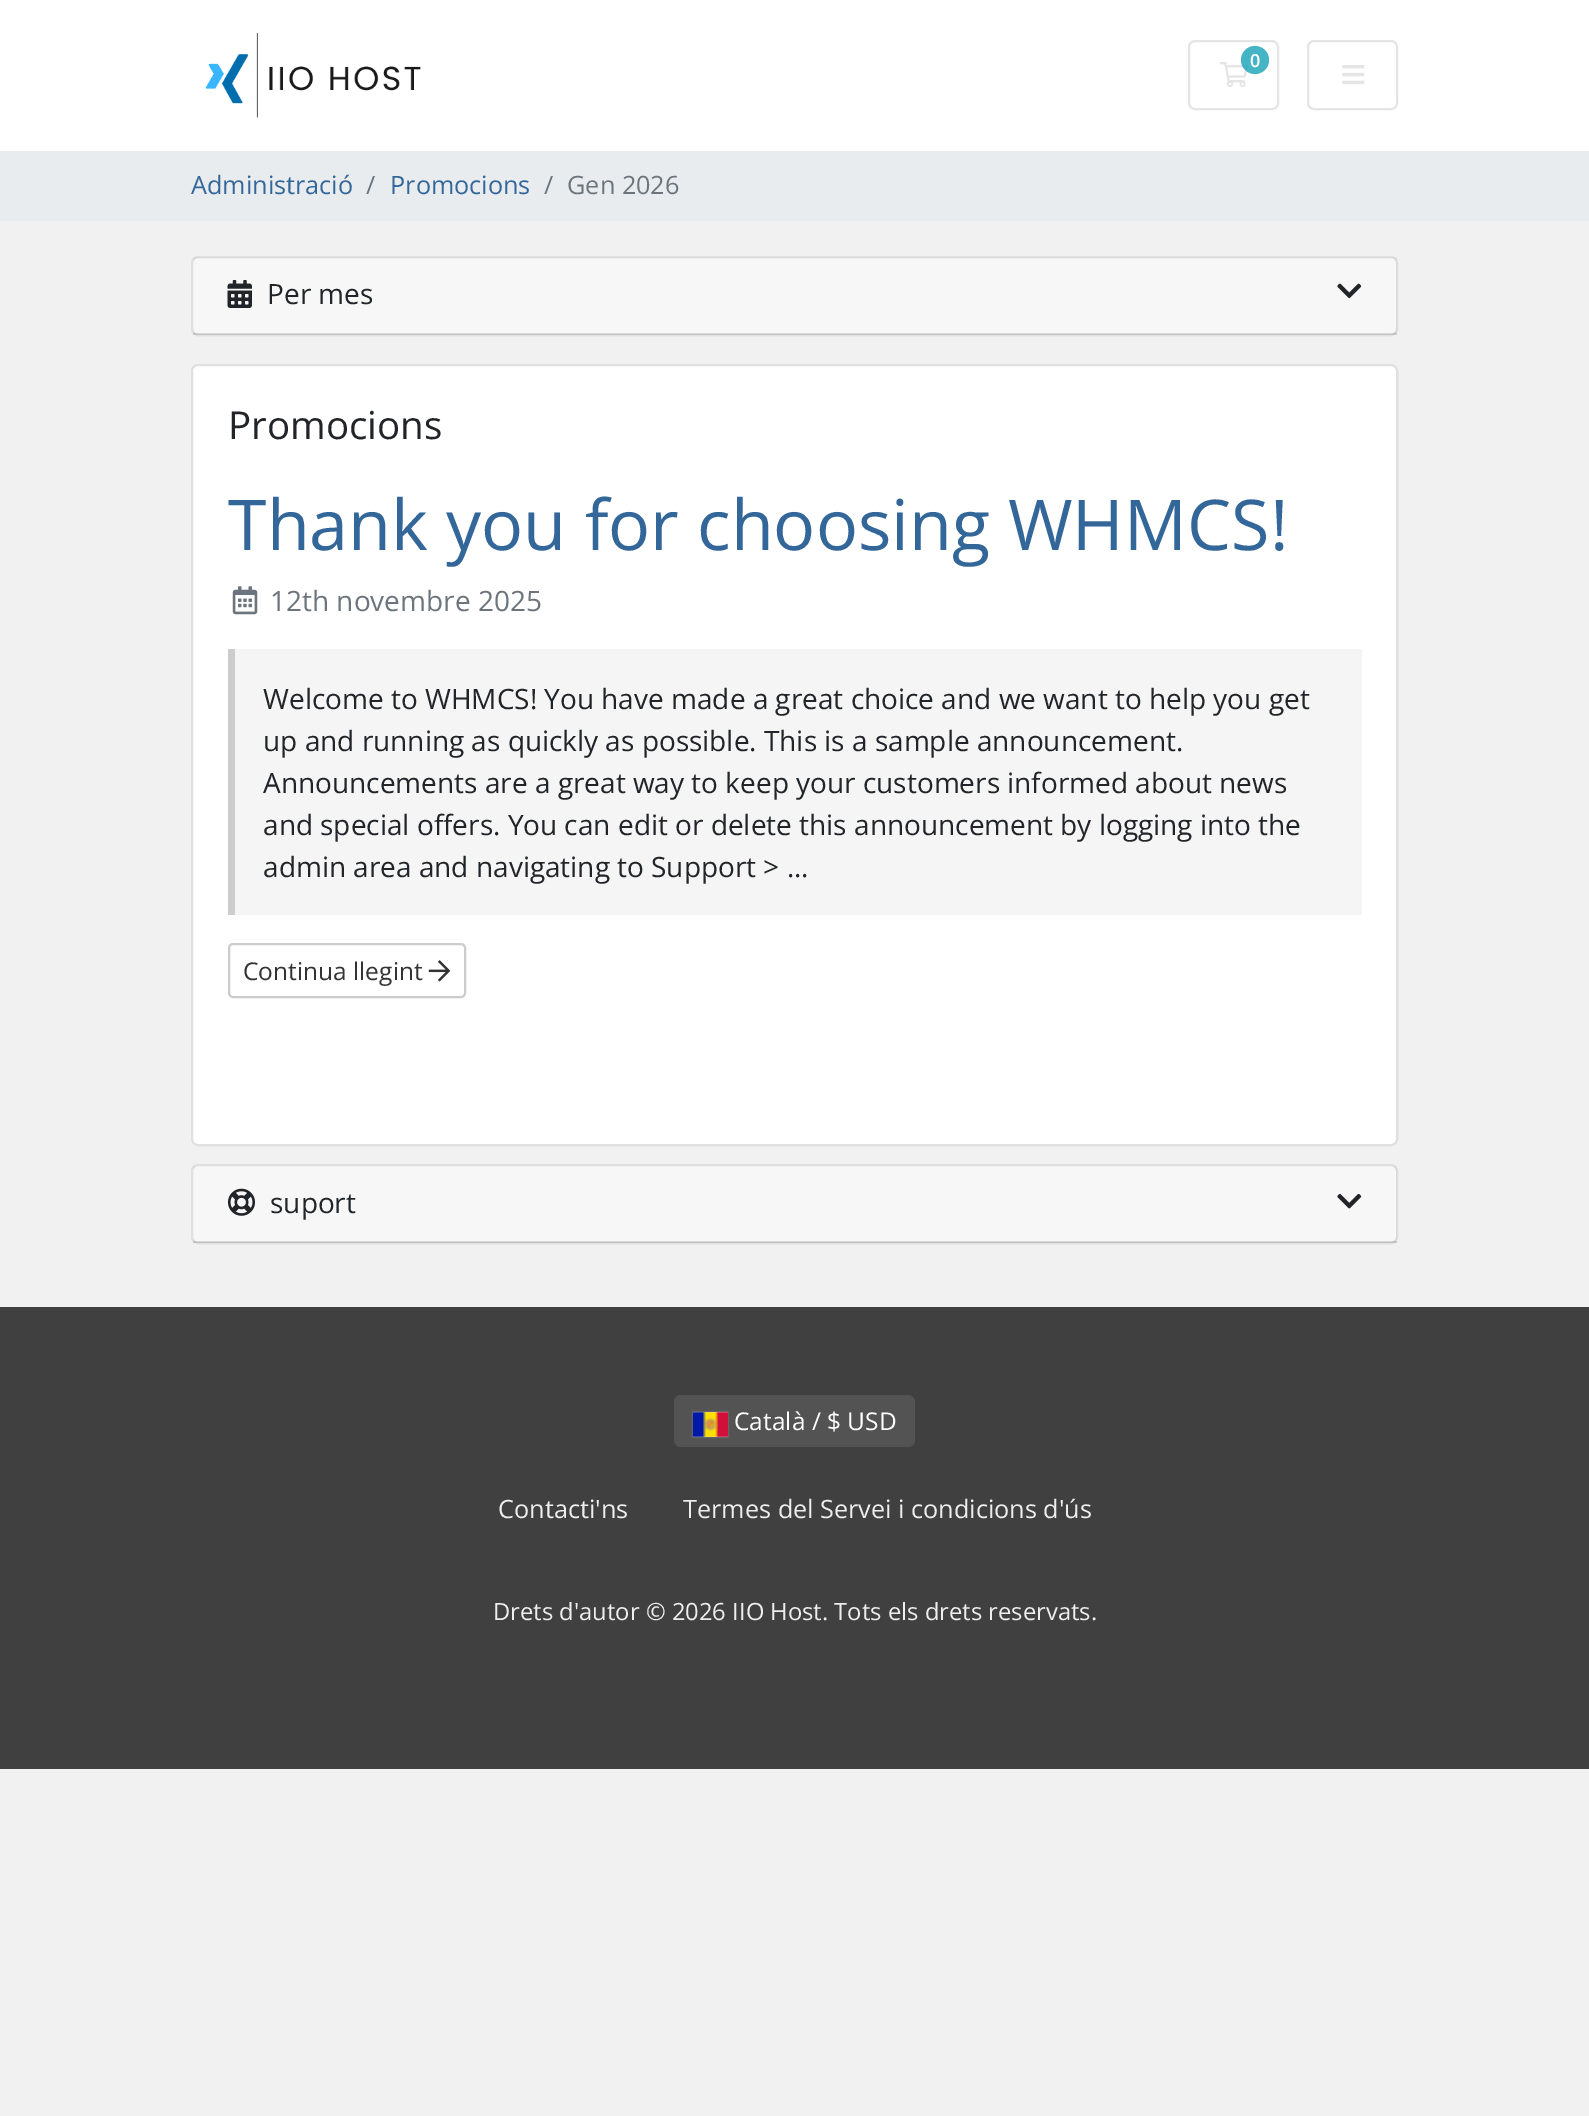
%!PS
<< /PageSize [1589 2116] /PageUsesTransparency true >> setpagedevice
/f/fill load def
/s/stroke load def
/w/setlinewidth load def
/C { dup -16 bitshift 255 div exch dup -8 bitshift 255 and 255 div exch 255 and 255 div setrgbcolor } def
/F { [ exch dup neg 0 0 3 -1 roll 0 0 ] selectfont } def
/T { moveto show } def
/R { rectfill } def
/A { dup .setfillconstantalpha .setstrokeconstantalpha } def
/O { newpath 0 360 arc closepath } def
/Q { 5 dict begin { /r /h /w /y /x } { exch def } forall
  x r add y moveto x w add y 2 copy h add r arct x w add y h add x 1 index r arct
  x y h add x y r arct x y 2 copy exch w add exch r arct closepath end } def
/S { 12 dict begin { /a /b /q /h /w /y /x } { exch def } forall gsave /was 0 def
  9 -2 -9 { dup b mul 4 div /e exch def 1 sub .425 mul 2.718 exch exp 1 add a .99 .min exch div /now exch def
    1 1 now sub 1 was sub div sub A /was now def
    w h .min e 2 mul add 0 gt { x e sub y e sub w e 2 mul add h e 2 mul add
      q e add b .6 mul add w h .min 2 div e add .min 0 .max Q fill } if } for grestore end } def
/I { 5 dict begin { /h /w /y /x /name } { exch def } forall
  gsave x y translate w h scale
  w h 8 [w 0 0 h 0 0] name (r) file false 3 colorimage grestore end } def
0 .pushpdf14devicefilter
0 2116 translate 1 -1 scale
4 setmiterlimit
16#F1F1F1 C
0 0 1589 2116 R
16#FFFFFF C
0 0 1589 151 R
(1.rgb) 205 32 216 86 I
16#E5E5E5 C
2 w
1189 41 89 68 6 Q s
(2.rgb) 1219 62 29 25 I
0.8 A
16#17A2B8 C
1255 60 14 O f
/OpenSans-SemiBold 18 F
1 A
16#FFFFFF C
(0) 1250 67 T
16#E5E5E5 C
1308 41 89 68 6 Q s
(3.rgb) 1342 65 23 20 I
16#E9ECEF C
0 151 1589 70 R
/OpenSans-Regular 25.25 F
16#336699 C
(Administració) 191 194 T
16#6C757D C
(/) 366 194 T
16#336699 C
(Promocions) 390 194 T
16#6C757D C
(/) 544 194 T
(Gen 2026) 567 194 T
16#FFFFFF C
191 256 1207 80 7 Q f
0.12 A
16#000000 C
192 257 1205 78 6 Q s
0.03 A
193 257 1204 77 R
0.12 A
193 333 1204 2 R
1 A
(4.rgb) 227 280 25 28 I
/OpenSans-Regular 28 F
16#212529 C
(Per mes) 267 304 T
(5.rgb) 1337 283 25 16 I
16#FFFFFF C
191 364 1207 782 7 Q f
0.12 A
16#000000 C
192 365 1205 780 6 Q s
/OpenSans-Regular 38.5 F
1 A
16#212529 C
(Promocions) 228 439 T
/OpenSans-Regular 70 F
16#336699 C
(Thank you for choosing WHMCS!) 228 550 T
(6.rgb) 232 586 26 29 I
/OpenSans-Regular 28 F
16#6C757D C
(12th novembre 2025) 270 611 T
16#F5F5F5 C
235 649 1127 266 R
16#CCCCCC C
228 649 7 266 R
16#212529 C
(Welcome to WHMCS! You have made a great choice and we want to help you get) 263 709 T
(up and running as quickly as possible. This is a sample announcement.) 263 751 T
(Announcements are a great way to keep your customers informed about news) 263 793 T
(and special offers. You can edit or delete this announcement by logging into the) 263 835 T
(admin area and navigating to Support > ...) 263 877 T
16#CCCCCC C
229 944 236 53 4 Q s
/OpenSans-Regular 24.5 F
16#333333 C
(Continua llegint) 243 980 T
(7.rgb) 428 960 23 22 I
16#FFFFFF C
191 1164 1207 80 7 Q f
0.12 A
16#000000 C
192 1165 1205 78 6 Q s
0.03 A
193 1166 1204 77 R
0.12 A
193 1241 1204 2 R
1 A
(8.rgb) 227 1188 29 28 I
/OpenSans-Regular 28 F
16#212529 C
(suport) 270 1213 T
(9.rgb) 1337 1193 25 16 I
16#404040 C
0 1307 1589 462 R
16#535353 C
674 1395 241 52 7 Q f
16#888888 C
693 1412 35 25 0 1 1 S
(10.rgb) 693 1412 35 25 I
/OpenSans-Regular 24.5 F
16#FFFFFF C
(Català / $ USD) 734 1430 T
/OpenSans-Regular 25.25 F
16#EEEEEE C
(Contacti'ns) 498 1518 T
(Termes del Servei i condicions d'ús) 683 1518 T
/OpenSans-Regular 23.8 F
(Drets d'autor © 2026 IIO Host. Tots els drets reservats.) 493 1620 T
.poppdf14devicefilter showpage
